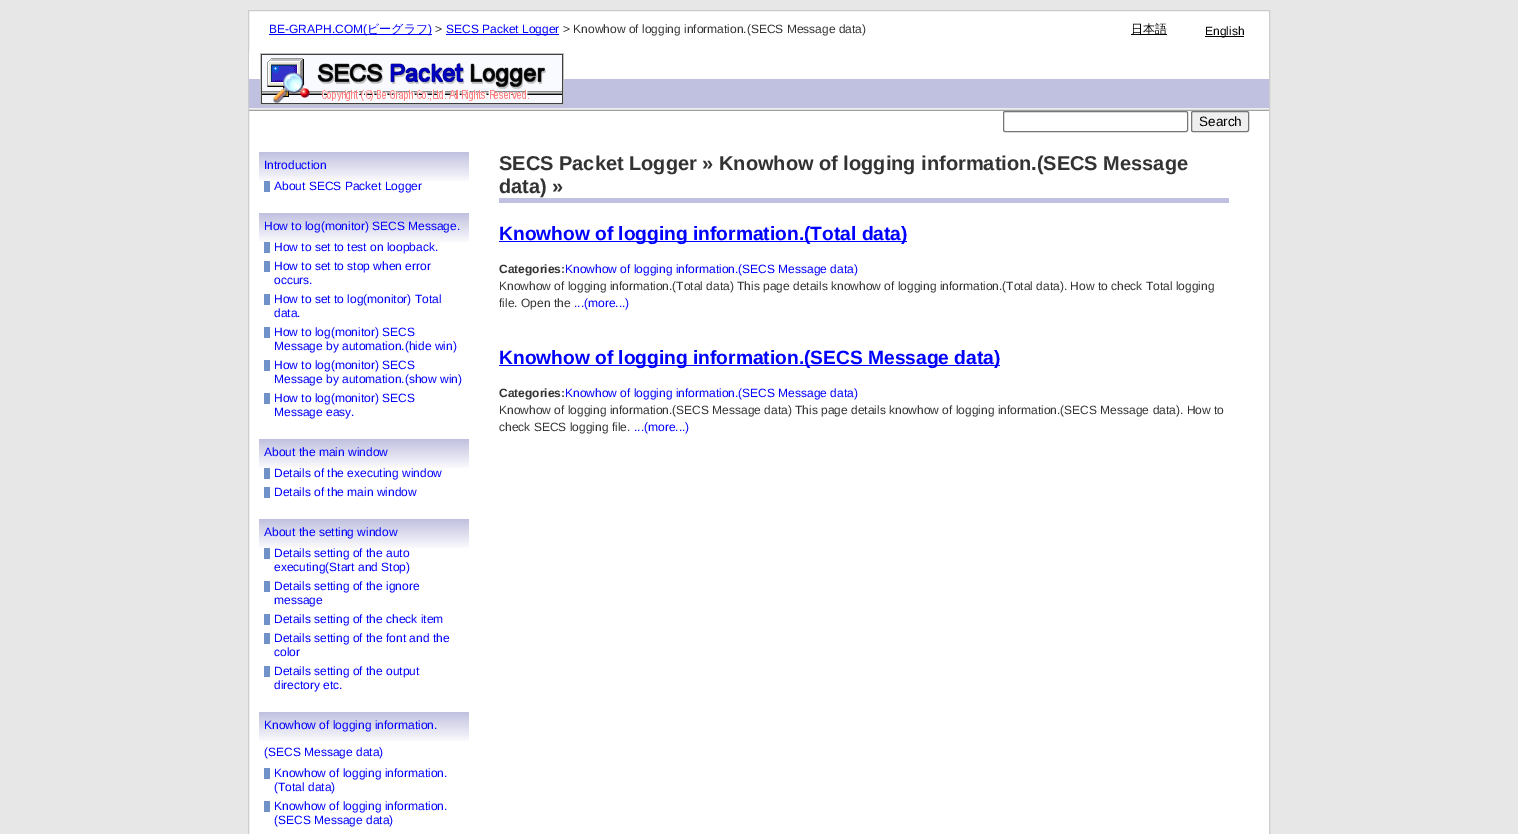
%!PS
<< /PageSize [1518 834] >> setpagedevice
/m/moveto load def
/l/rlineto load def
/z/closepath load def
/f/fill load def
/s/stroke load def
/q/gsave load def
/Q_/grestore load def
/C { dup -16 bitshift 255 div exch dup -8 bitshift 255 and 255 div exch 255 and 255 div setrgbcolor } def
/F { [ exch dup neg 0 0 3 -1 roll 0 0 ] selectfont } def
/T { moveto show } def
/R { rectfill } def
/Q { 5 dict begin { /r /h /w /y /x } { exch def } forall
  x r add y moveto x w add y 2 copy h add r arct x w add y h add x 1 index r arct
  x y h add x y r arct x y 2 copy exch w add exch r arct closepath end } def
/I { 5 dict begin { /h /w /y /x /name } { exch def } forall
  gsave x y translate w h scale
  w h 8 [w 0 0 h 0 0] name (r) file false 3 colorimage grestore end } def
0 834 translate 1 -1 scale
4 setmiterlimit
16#E7E7E7 C
0 0 1518 834 R
16#FFFFFF C
248.5 10.5 m 1021 0 l 0 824 l -1021 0 l z q f Q_
16#CCCCCC C
s
(1.rgb) 249 53 1020 58 I
16#0000FF C
269 34 163 1 R
/LiberationSans-Regular 12 F
(BE-GRAPH.COM\() 269 33 T
/WenQuanYiZenHei-Medium 12 F
(ビーグラフ) 367 33 T
/LiberationSans-Regular 12 F
(\)) 428 33 T
16#333333 C
(>) 435 33 T
16#0000FF C
446 34 113 1 R
(SECS Packet Logger) 446 33 T
16#333333 C
(> Knowhow of logging information.\(SECS Message data\)) 563 33 T
16#000000 C
1131 34 36 1 R
/WenQuanYiZenHei-Medium 12 F
(日本語) 1131 33 T
1205 36 39 1 R
/LiberationSans-Regular 12 F
(English) 1205 35 T
16#767676 C
1003.5 111.5 184 20 1.5 Q s
16#EFEFEF C
1191.5 111.5 57 20 1.5 Q q f Q_
16#767676 C
s
/LiberationSans-Regular 13.5 F
16#000000 C
(Search) 1199 126 T
(2.rgb) 259 152 210 29 I
/LiberationSans-Regular 12 F
16#0000FF C
(Introduction) 264 169 T
16#7192C9 C
264 181 6 11 R
16#0000FF C
(About SECS Packet Logger) 274 190 T
(2.rgb) 259 213 210 29 I
(How to log\(monitor\) SECS Message.) 264 230 T
16#7192C9 C
264 242 6 11 R
16#0000FF C
(How to set to test on loopback.) 274 251 T
16#7192C9 C
264 261 6 11 R
16#0000FF C
(How to set to stop when error) 274 270 T
(occurs.) 274 284 T
16#7192C9 C
264 294 6 11 R
16#0000FF C
(How to set to log\(monitor\) Total) 274 303 T
(data.) 274 317 T
16#7192C9 C
264 327 6 11 R
16#0000FF C
(How to log\(monitor\) SECS) 274 336 T
(Message by automation.\(hide win\)) 274 350 T
16#7192C9 C
264 360 6 11 R
16#0000FF C
(How to log\(monitor\) SECS) 274 369 T
(Message by automation.\(show win\)) 274 383 T
16#7192C9 C
264 393 6 11 R
16#0000FF C
(How to log\(monitor\) SECS) 274 402 T
(Message easy.) 274 416 T
(2.rgb) 259 439 210 29 I
(About the main window) 264 456 T
16#7192C9 C
264 468 6 11 R
16#0000FF C
(Details of the executing window) 274 477 T
16#7192C9 C
264 487 6 11 R
16#0000FF C
(Details of the main window) 274 496 T
(2.rgb) 259 519 210 29 I
(About the setting window) 264 536 T
16#7192C9 C
264 548 6 11 R
16#0000FF C
(Details setting of the auto) 274 557 T
(executing\(Start and Stop\)) 274 571 T
16#7192C9 C
264 581 6 11 R
16#0000FF C
(Details setting of the ignore) 274 590 T
(message) 274 604 T
16#7192C9 C
264 614 6 11 R
16#0000FF C
(Details setting of the check item) 274 623 T
16#7192C9 C
264 633 6 11 R
16#0000FF C
(Details setting of the font and the) 274 642 T
(color) 274 656 T
16#7192C9 C
264 666 6 11 R
16#0000FF C
(Details setting of the output) 274 675 T
(directory etc.) 274 689 T
(2.rgb) 259 712 210 29 I
(Knowhow of logging information.) 264 729 T
(\(SECS Message data\)) 264 756 T
16#7192C9 C
264 768 6 11 R
16#0000FF C
(Knowhow of logging information.) 274 777 T
(\(Total data\)) 274 791 T
16#7192C9 C
264 801 6 11 R
16#0000FF C
(Knowhow of logging information.) 274 810 T
(\(SECS Message data\)) 274 824 T
16#C0C0E0 C
499 198 730 5 R
/LiberationSans-Bold 20 F
16#333333 C
(SECS Packet Logger » Knowhow of logging information.\(SECS Message) 499 170 T
(data\) ») 499 193 T
16#0000FF C
499 241 408 1 R
/LiberationSans-Bold 19.2 F
(Knowhow of logging information.\(Total data\)) 499 240 T
/LiberationSans-Bold 12 F
16#333333 C
(Categories:) 499 273 T
/LiberationSans-Regular 12 F
16#0000FF C
(Knowhow of logging information.\(SECS Message data\)) 565 273 T
16#333333 C
(Knowhow of logging information.\(Total data\) This page details knowhow of logging information.\(Total data\). How to check Total logging) 499 290 T
(file. Open the) 499 307 T
16#0000FF C
(...\(more...\)) 574 307 T
499 365 501 1 R
/LiberationSans-Bold 19.2 F
(Knowhow of logging information.\(SECS Message data\)) 499 364 T
/LiberationSans-Bold 12 F
16#333333 C
(Categories:) 499 397 T
/LiberationSans-Regular 12 F
16#0000FF C
(Knowhow of logging information.\(SECS Message data\)) 565 397 T
16#333333 C
(Knowhow of logging information.\(SECS Message data\) This page details knowhow of logging information.\(SECS Message data\). How to) 499 414 T
(check SECS logging file.) 499 431 T
16#0000FF C
(...\(more...\)) 634 431 T
showpage
